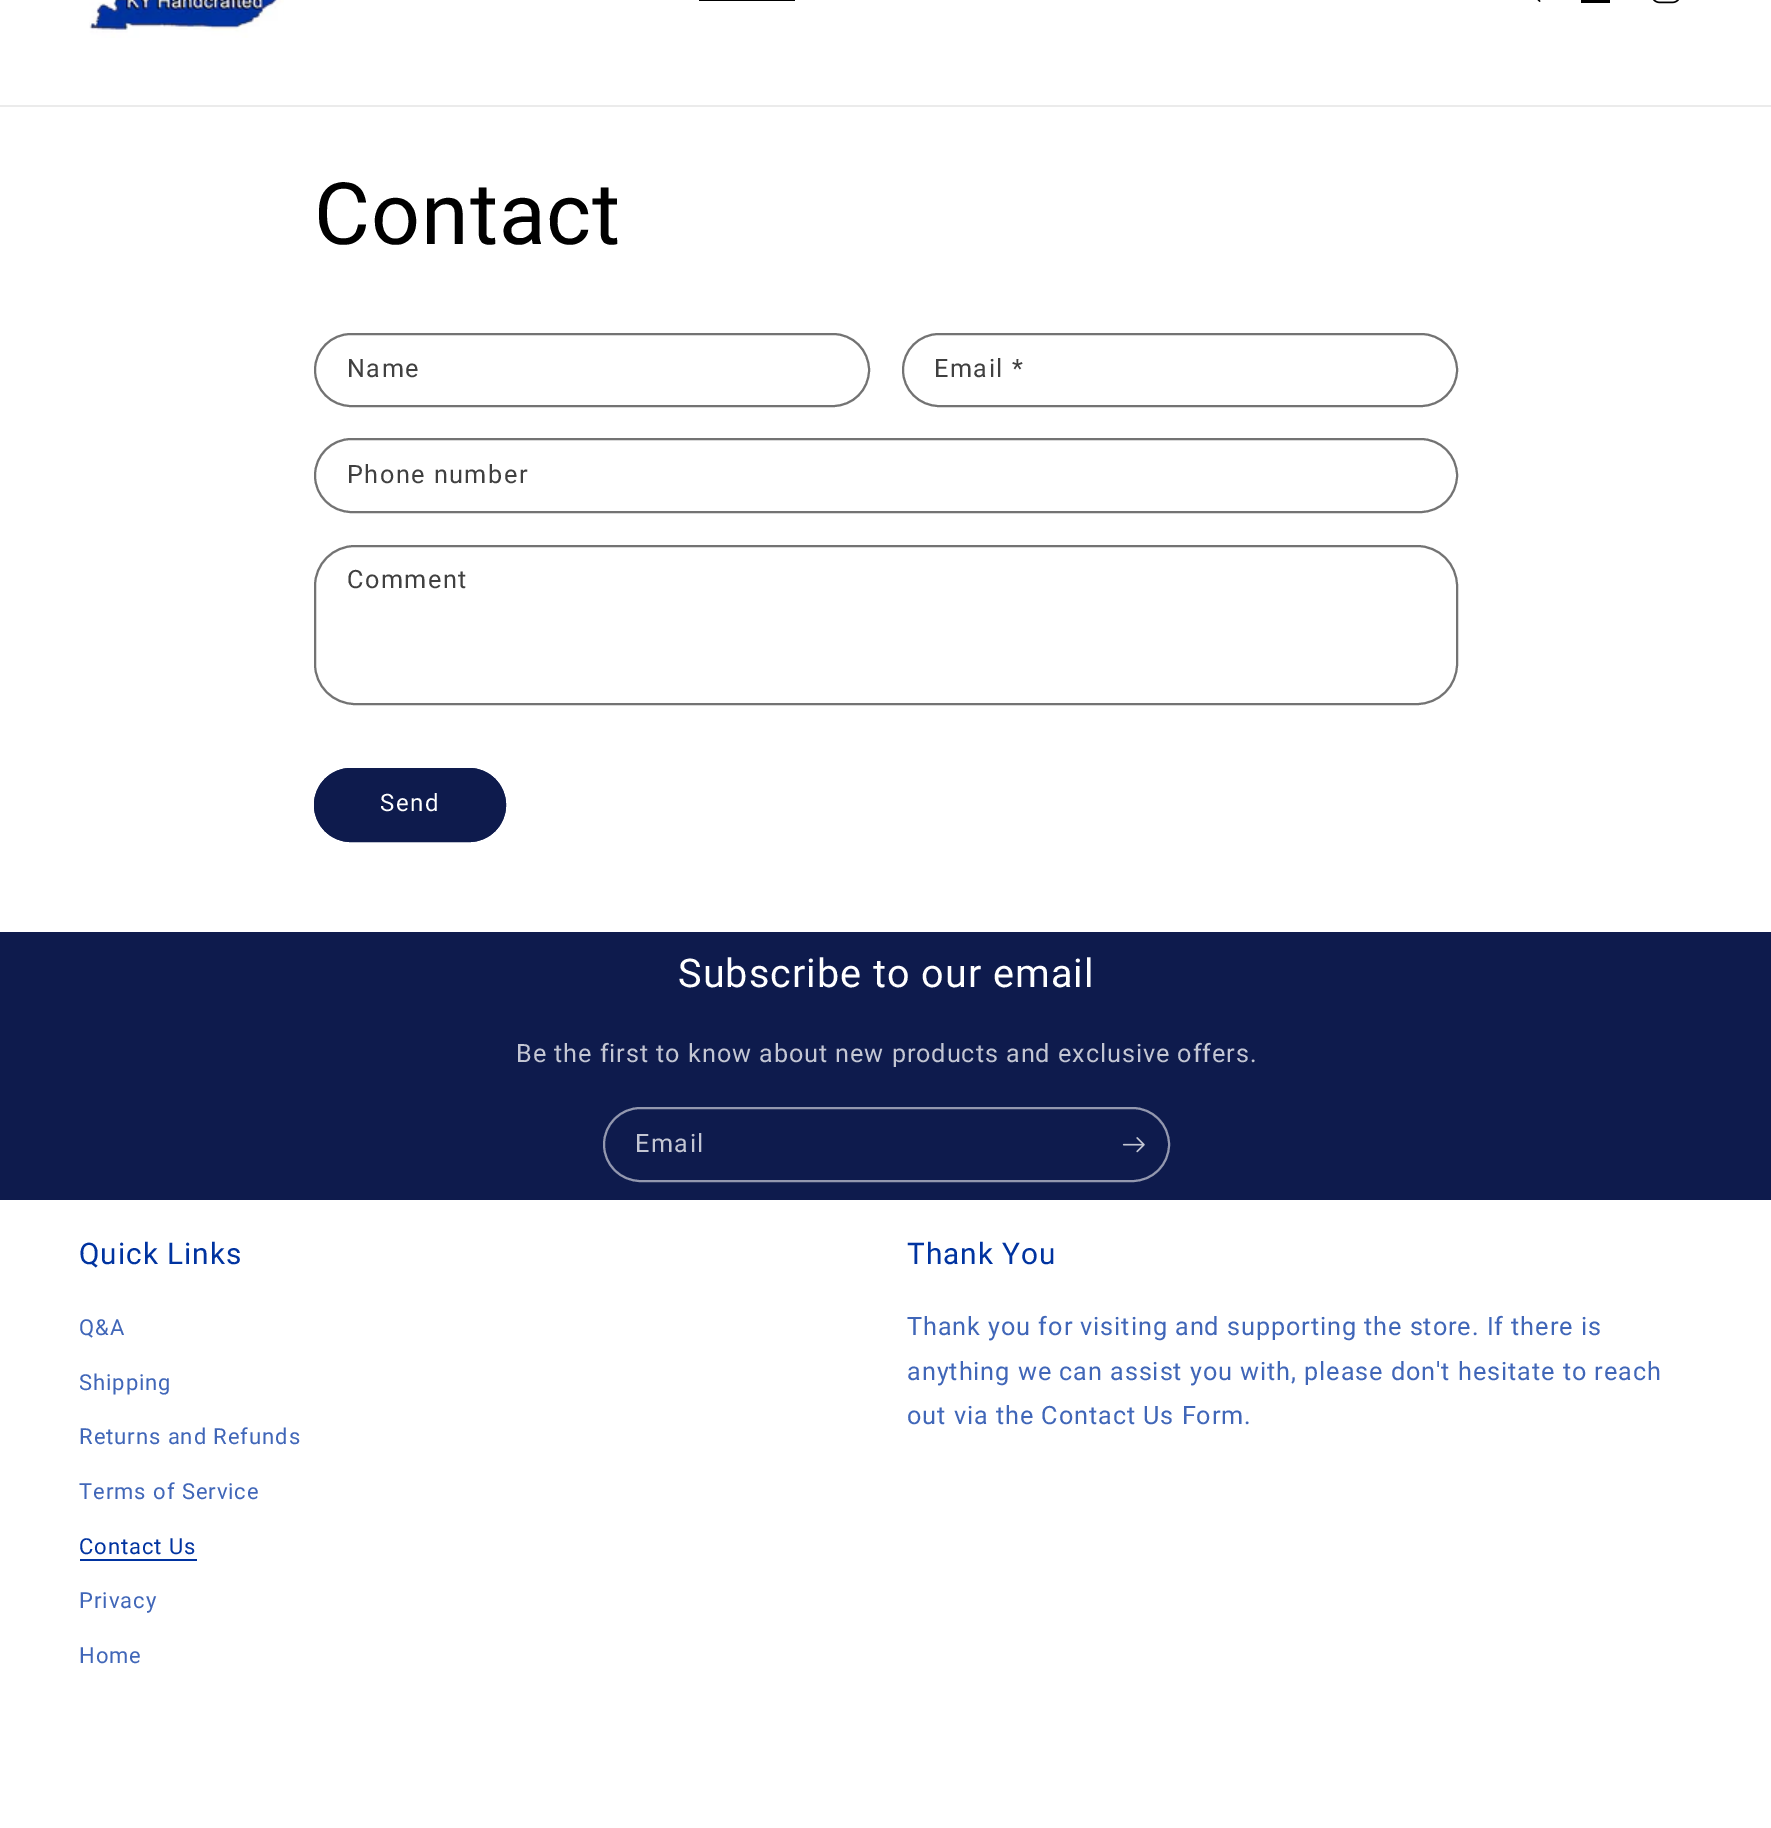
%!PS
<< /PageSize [1771 1828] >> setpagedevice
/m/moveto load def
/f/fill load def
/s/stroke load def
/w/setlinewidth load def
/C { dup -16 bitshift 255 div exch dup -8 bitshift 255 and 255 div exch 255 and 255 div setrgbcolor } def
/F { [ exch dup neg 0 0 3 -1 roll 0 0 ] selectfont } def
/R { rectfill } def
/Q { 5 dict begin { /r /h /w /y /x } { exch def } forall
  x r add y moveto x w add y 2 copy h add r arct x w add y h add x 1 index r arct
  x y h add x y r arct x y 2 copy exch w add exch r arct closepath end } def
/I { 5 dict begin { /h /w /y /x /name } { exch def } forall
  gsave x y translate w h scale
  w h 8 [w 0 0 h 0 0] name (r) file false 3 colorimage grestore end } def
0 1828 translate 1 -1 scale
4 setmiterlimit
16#FFFFFF C
0 0 1771 1828 R
16#EBEBEB C
0 105 1771 2 R
(1.rgb) 89 0 195 38 I
16#000000 C
699 0 96 1 R
(2.rgb) 1537 0 4 2 I
1581 0 29 3 R
(3.rgb) 1653 0 26 4 I
/Roboto-Regular 86 F
314 244 m 1 0 (Contact) ashow
16#737373 C
2 w
315 334 554 72 36 Q s
/Roboto-Regular 25.2 F
16#404040 C
347 377 m 1.5 0 (Name) ashow
16#737373 C
903 334 554 72 36 Q s
16#404040 C
934 377 m 1.5 0 (Email *) ashow
16#737373 C
315 439 1142 73 36.5 Q s
16#404040 C
347 483 m 1.5 0 (Phone number) ashow
16#737373 C
315 546 1142 158 40 Q s
16#404040 C
347 588 m 1.5 0 (Comment) ashow
16#0E1B4D C
314 768 192 74 37 Q f
315 769 190 72 36 Q s
/Roboto-Regular 24 F
16#FFFFFF C
380 811 m 1.5 0 (Send) ashow
16#0E1B4D C
0 932 1771 268 R
/Roboto-Regular 39.6 F
16#FFFFFF C
678 987 m 1 0 (Subscribe to our email) ashow
/Roboto-Regular 25.2 F
16#C3C6D3 C
516 1062 m .95 0 (Be the first to know about new products and exclusive offers.) ashow
16#9398AF C
604 1108 565 73 36.5 Q s
16#C3C6D3 C
635 1152 m 1.5 0 (Email) ashow
(4.rgb) 1122 1137 23 16 I
/Roboto-Regular 29.75 F
16#0033A0 C
79 1264 m 1 0 (Quick Links) ashow
/Roboto-Regular 22 F
16#4066B8 C
79 1335 m .95 0 (Q&A) ashow
79 1390 m .95 0 (Shipping) ashow
79 1444 m .95 0 (Returns and Refunds) ashow
79 1499 m .95 0 (Terms of Service) ashow
16#0033A0 C
79 1554 m .95 0 (Contact Us) ashow
80 1559 117 2 R
16#4066B8 C
79 1608 m .95 0 (Privacy) ashow
79 1663 m .95 0 (Home) ashow
/Roboto-Regular 29.75 F
16#0033A0 C
907 1264 m 1 0 (Thank You) ashow
/Roboto-Regular 25.2 F
16#4066B8 C
907 1335 m .95 0 (Thank you for visiting and supporting the store. If there is) ashow
907 1380 m .95 0 (anything we can assist you with, please don't hesitate to reach) ashow
907 1424 m .95 0 (out via the Contact Us Form.) ashow
showpage
